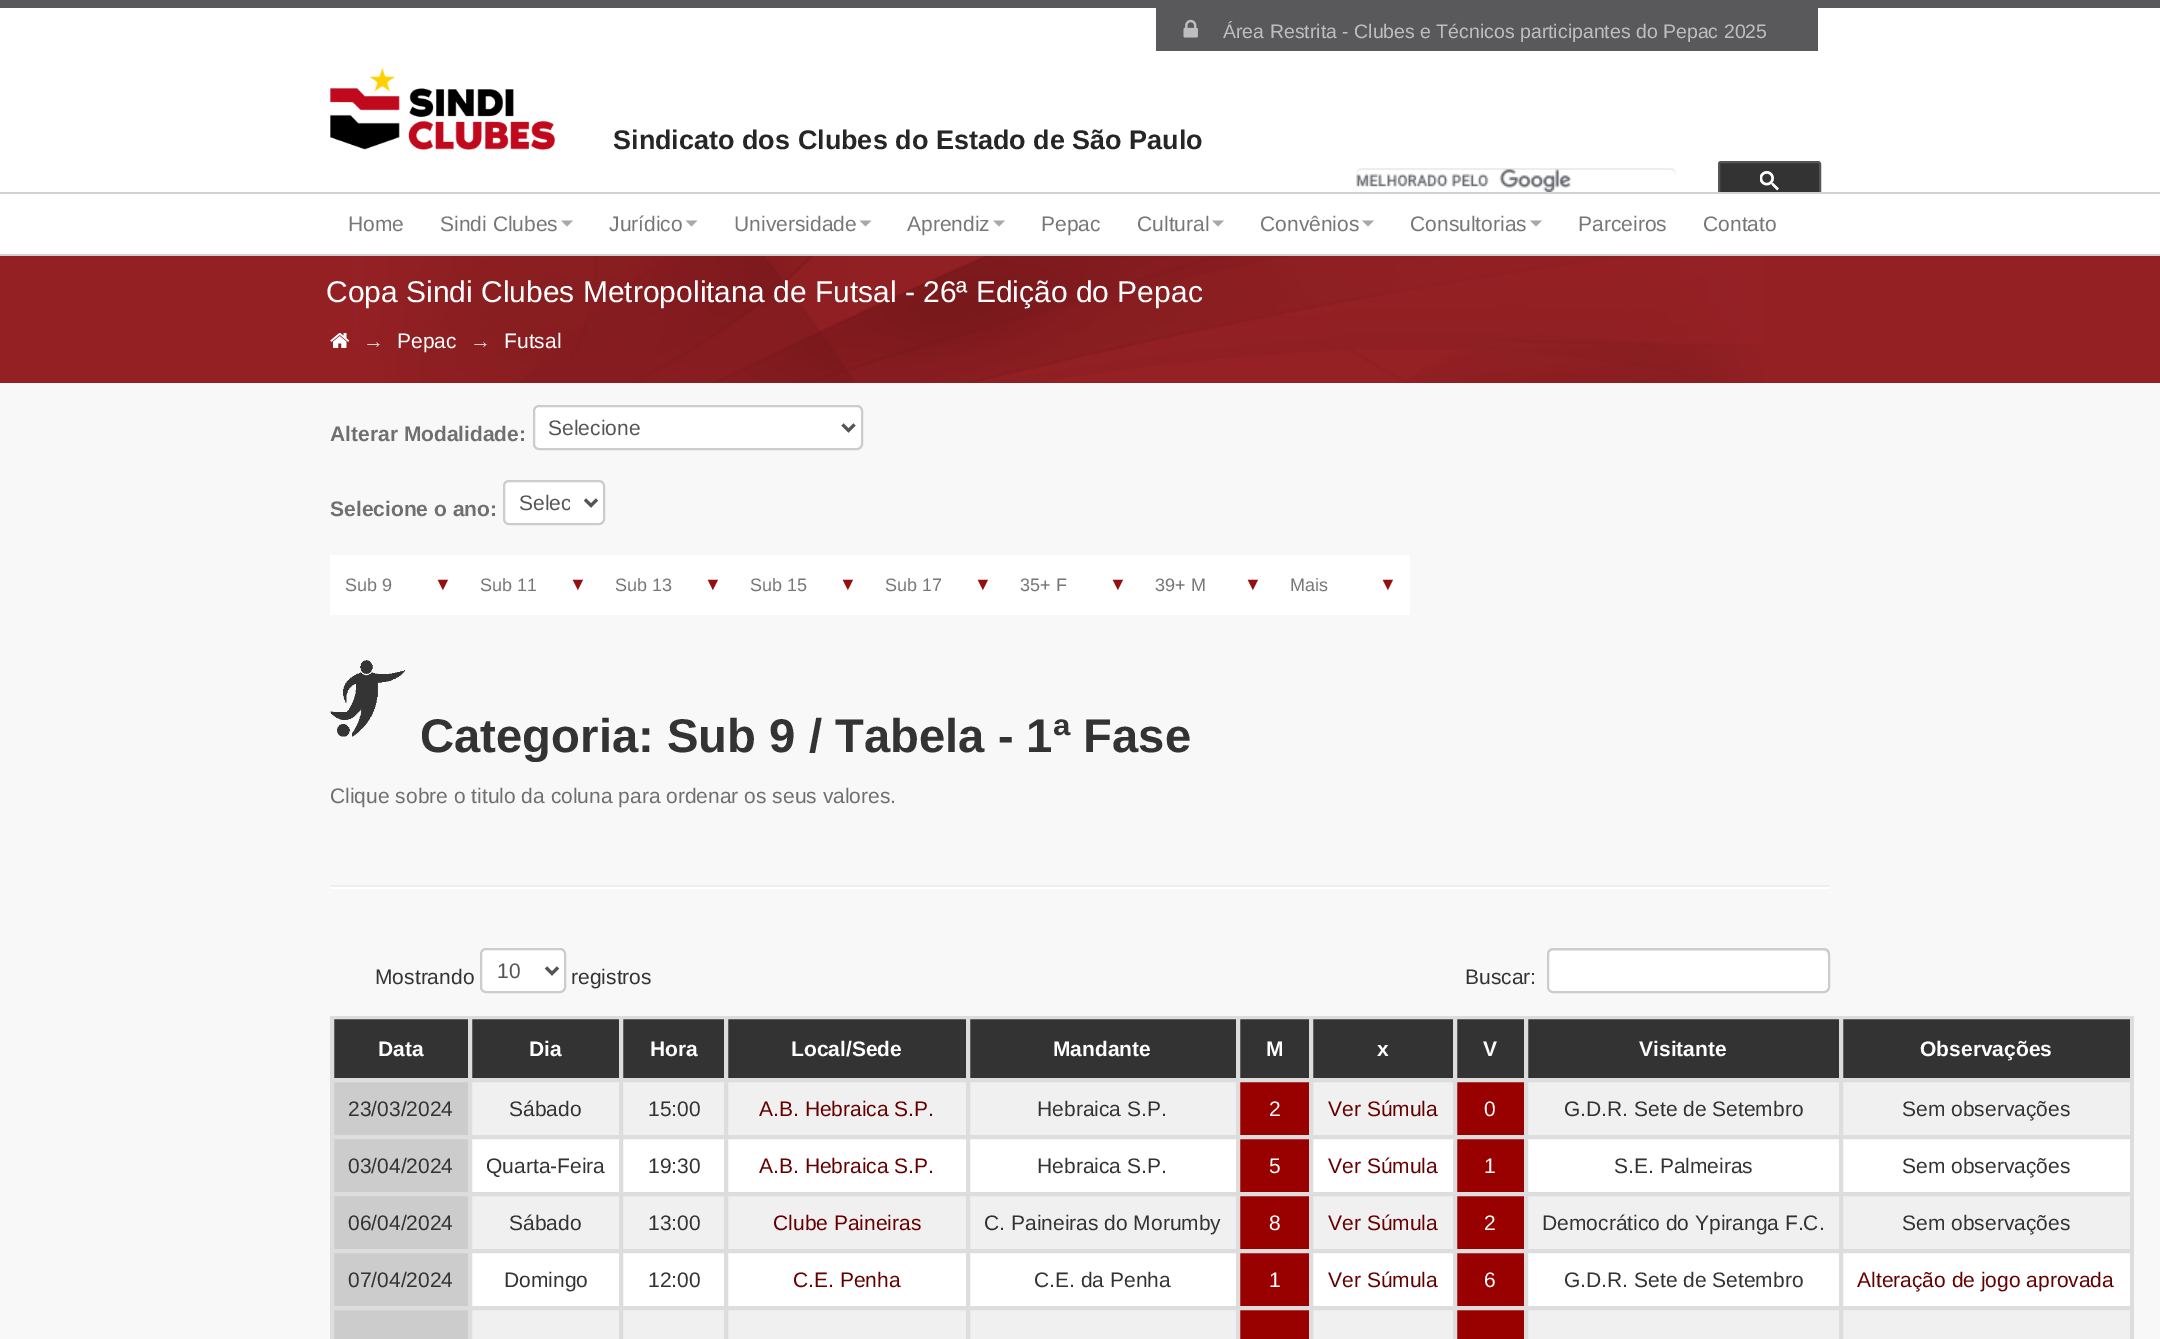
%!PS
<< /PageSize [2160 1339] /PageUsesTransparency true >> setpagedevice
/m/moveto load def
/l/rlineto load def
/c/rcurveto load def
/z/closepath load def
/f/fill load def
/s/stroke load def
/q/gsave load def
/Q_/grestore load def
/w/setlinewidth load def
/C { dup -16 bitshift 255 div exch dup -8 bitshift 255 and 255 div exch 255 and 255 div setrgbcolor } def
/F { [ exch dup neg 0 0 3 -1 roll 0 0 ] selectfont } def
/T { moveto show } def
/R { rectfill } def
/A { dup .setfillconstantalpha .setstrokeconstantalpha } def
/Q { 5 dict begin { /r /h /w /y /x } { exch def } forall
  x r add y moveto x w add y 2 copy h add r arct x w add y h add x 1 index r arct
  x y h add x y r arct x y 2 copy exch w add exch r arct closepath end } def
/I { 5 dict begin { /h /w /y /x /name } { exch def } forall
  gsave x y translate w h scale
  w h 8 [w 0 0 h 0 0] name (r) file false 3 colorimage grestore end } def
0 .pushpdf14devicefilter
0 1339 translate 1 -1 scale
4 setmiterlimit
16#F8F8F8 C
0 0 2160 1339 R
16#59595B C
0 0 2160 8 R
16#FFFFFF C
0 8 2160 184 R
16#59595B C
1156 8 662 43 R
(1.rgb) 1183 19 15 19 I
/LiberationSans-Regular 19.5 F
16#BEBEBE C
(Área Restrita - Clubes e Técnicos participantes do Pepac 2025) 1223 38 T
(2.rgb) 330 67 225 83 I
/LiberationSans-Bold 27 F
16#272525 C
(Sindicato dos Clubes do Estado de São Paulo) 613 149 T
(3.rgb) 1356 169 215 23 I
0.07 A
16#000000 C
1362 170 m 308 0 l 3 0 6 2 6 6 c 0 -4 -1 -8 -6 -8 c -309 0 l -4 1 -5 5 -5 8 c 0 -4 3 -6 6 -6 c z f
1 A
16#333333 C
1719 162 101 38 2 Q q f Q_
16#555555 C
2 w
s
(4.rgb) 1760 171 19 20 I
16#FFFFFF C
0 194 2160 60 R
16#D2D2D2 C
0 192 2160 2 R
/LiberationSans-Regular 21 F
16#777777 C
(Home) 348 231 T
(Sindi Clubes) 440 231 T
16#A8A8A8 C
561 220.5 m 12 0 l -6 6 l z f
16#777777 C
(Jurídico) 609 231 T
16#A8A8A8 C
685.5 220.5 m 12 0 l -6 6 l z f
16#777777 C
(Universidade) 734 231 T
16#A8A8A8 C
859.5 220.5 m 12 0 l -6 6 l z f
16#777777 C
(Aprendiz) 907 231 T
16#A8A8A8 C
993 220.5 m 12 0 l -6 6 l z f
16#777777 C
(Pepac) 1041 231 T
(Cultural) 1137 231 T
16#A8A8A8 C
1212 220.5 m 12 0 l -6 6 l z f
16#777777 C
(Convênios) 1260 231 T
16#A8A8A8 C
1362 220.5 m 12 0 l -6 6 l z f
16#777777 C
(Consultorias) 1410 231 T
16#A8A8A8 C
1530 220.5 m 12 0 l -6 6 l z f
16#777777 C
(Parceiros) 1578 231 T
(Contato) 1703 231 T
16#D2D2D2 C
0 254 2160 2 R
16#942023 C
0 256 2160 127 R
(5.rgb) 352 256 1411 127 I
/LiberationSans-Regular 30 F
16#FFFFFF C
(Copa Sindi Clubes Metropolitana de Futsal - 26ª Edição do Pepac) 326 302 T
(6.rgb) 330 333 20 15 I
/LiberationSans-Regular 21 F
16#CCCCCC C
(→) 363 348 T
16#FFFFFF C
(Pepac) 397 348 T
16#CCCCCC C
(→) 470 348 T
16#FFFFFF C
(Futsal) 504 348 T
/LiberationSans-Bold 21 F
16#6F6F6F C
(Alterar Modalidade:) 330 441 T
16#FFFFFF C
534 406 328 43 5 Q q f Q_
16#CCCCCC C
s
16#555555 C
3 w
842.5 424.5 m 6 6 l 6 -6 l s
/LiberationSans-Regular 21 F
(Selecione) 548 435 T
/LiberationSans-Bold 21 F
16#6F6F6F C
(Selecione o ano:) 330 516 T
16#FFFFFF C
504 481 100 43 5 Q q f Q_
16#CCCCCC C
2 w
s
16#555555 C
3 w
585 499.5 m 6 6 l 6 -6 l s
q
519 489 51 27 rectclip
/LiberationSans-Regular 21 F
(Selec) 519 510 T
Q_
16#FFFFFF C
330 555 1080 60 R
/LiberationSans-Regular 18 F
16#777777 C
(Sub 9) 345 591 T
/LiberationSans-Italic 18 F
16#941010 C
(▼) 434 590 T
/LiberationSans-Regular 18 F
16#777777 C
(Sub 11) 480 591 T
/LiberationSans-Italic 18 F
16#941010 C
(▼) 569 590 T
/LiberationSans-Regular 18 F
16#777777 C
(Sub 13) 615 591 T
/LiberationSans-Italic 18 F
16#941010 C
(▼) 704 590 T
/LiberationSans-Regular 18 F
16#777777 C
(Sub 15) 750 591 T
/LiberationSans-Italic 18 F
16#941010 C
(▼) 839 590 T
/LiberationSans-Regular 18 F
16#777777 C
(Sub 17) 885 591 T
/LiberationSans-Italic 18 F
16#941010 C
(▼) 974 590 T
/LiberationSans-Regular 18 F
16#777777 C
(35+ F) 1020 591 T
/LiberationSans-Italic 18 F
16#941010 C
(▼) 1109 590 T
/LiberationSans-Regular 18 F
16#777777 C
(39+ M) 1155 591 T
/LiberationSans-Italic 18 F
16#941010 C
(▼) 1244 590 T
/LiberationSans-Regular 18 F
16#777777 C
(Mais) 1290 591 T
/LiberationSans-Italic 18 F
16#941010 C
(▼) 1379 590 T
(7.rgb) 330 660 75 77 I
/LiberationSans-Bold 47.25 F
16#333333 C
(Categoria: Sub 9 / Tabela - 1ª Fase) 420 752 T
/LiberationSans-Regular 21 F
16#6F6F6F C
(Clique sobre o titulo da coluna para ordenar os seus valores.) 330 803 T
16#EEEEEE C
330 885 1500 2 R
16#FFFFFF C
330 887 1500 2 R
16#333333 C
(Mostrando) 375 984 T
16#FFFFFF C
481 949 84 43 5 Q q f Q_
16#CCCCCC C
2 w
s
16#555555 C
3 w
546 967.5 m 6 6 l 6 -6 l s
(10) 497 978 T
16#333333 C
(registros) 571 984 T
(Buscar:) 1465 984 T
16#FFFFFF C
1547 948 283 45 6 Q f
16#ECECEC C
1552 951 m 272 0 l 2 0 4 2 4 5 c 0 32 l -1 3 l 1 -1 2 -3 2 -4 c 0 -32 l 0 -3 -2 -5 -5 -5 c -271 0 l -3 0 -5 2 -5 5 c 0 1 l 0 -3 2 -5 4 -5 c z f
16#CCCCCC C
2 w
1548 949 281 43 5 Q s
16#DDDDDD C
330 1016 1803 1 R
2132 1016 2 323 R
330 1016 2 323 R
16#333333 C
333 1018 m 136 0 l 0 61 l -136 0 l z q f Q_
16#DDDDDD C
s
/LiberationSans-Bold 21 F
16#FFFFFF C
(Data) 378 1056 T
16#333333 C
471 1018 m 149 0 l 0 61 l -149 0 l z q f Q_
16#DDDDDD C
s
16#FFFFFF C
(Dia) 529 1056 T
16#333333 C
622 1018 m 103 0 l 0 61 l -103 0 l z q f Q_
16#DDDDDD C
s
16#FFFFFF C
(Hora) 650 1056 T
16#333333 C
727 1018 m 240 0 l 0 61 l -240 0 l z q f Q_
16#DDDDDD C
s
16#FFFFFF C
(Local/Sede) 791 1056 T
16#333333 C
969 1018 m 268 0 l 0 61 l -268 0 l z q f Q_
16#DDDDDD C
s
16#FFFFFF C
(Mandante) 1053 1056 T
16#333333 C
1239 1018 m 71 0 l 0 61 l -71 0 l z q f Q_
16#DDDDDD C
s
16#FFFFFF C
(M) 1266 1056 T
16#333333 C
1312 1018 m 142 0 l 0 61 l -142 0 l z q f Q_
16#DDDDDD C
s
16#FFFFFF C
(x) 1377 1056 T
16#333333 C
1456 1018 m 69 0 l 0 61 l -69 0 l z q f Q_
16#DDDDDD C
s
16#FFFFFF C
(V) 1483 1056 T
16#333333 C
1527 1018 m 313 0 l 0 61 l -313 0 l z q f Q_
16#DDDDDD C
s
16#FFFFFF C
(Visitante) 1639 1056 T
16#333333 C
1842 1018 m 289 0 l 0 61 l -289 0 l z q f Q_
16#DDDDDD C
s
16#FFFFFF C
(Observações) 1920 1056 T
16#CCCCCC C
333 1081 m 136 0 l 0 55 l -136 0 l z q f Q_
16#DDDDDD C
s
/LiberationSans-Regular 21 F
16#333333 C
(23/03/2024) 348 1116 T
16#F0F0F0 C
471 1081 m 149 0 l 0 55 l -149 0 l z q f Q_
16#DDDDDD C
s
16#333333 C
(Sábado) 509 1116 T
16#F0F0F0 C
622 1081 m 103 0 l 0 55 l -103 0 l z q f Q_
16#DDDDDD C
s
16#333333 C
(15:00) 648 1116 T
16#F0F0F0 C
727 1081 m 240 0 l 0 55 l -240 0 l z q f Q_
16#DDDDDD C
s
16#660000 C
(A.B. Hebraica S.P.) 759 1116 T
16#F0F0F0 C
969 1081 m 268 0 l 0 55 l -268 0 l z q f Q_
16#DDDDDD C
s
16#333333 C
(Hebraica S.P.) 1037 1116 T
16#990000 C
1239 1081 m 71 0 l 0 55 l -71 0 l z q f Q_
16#DDDDDD C
s
16#FFFFFF C
(2) 1269 1116 T
16#F0F0F0 C
1312 1081 m 142 0 l 0 55 l -142 0 l z q f Q_
16#DDDDDD C
s
16#660000 C
(Ver Súmula) 1328 1116 T
16#990000 C
1456 1081 m 69 0 l 0 55 l -69 0 l z q f Q_
16#DDDDDD C
s
16#FFFFFF C
(0) 1484 1116 T
16#F0F0F0 C
1527 1081 m 313 0 l 0 55 l -313 0 l z q f Q_
16#DDDDDD C
s
16#333333 C
(G.D.R. Sete de Setembro) 1564 1116 T
16#F0F0F0 C
1842 1081 m 289 0 l 0 55 l -289 0 l z q f Q_
16#DDDDDD C
s
16#333333 C
(Sem observações) 1902 1116 T
16#FFFFFF C
472 1139 1658 53 R
16#CCCCCC C
333 1138 m 136 0 l 0 55 l -136 0 l z q f Q_
16#DDDDDD C
s
16#333333 C
(03/04/2024) 348 1173 T
16#DDDDDD C
471 1138 149 55 rectstroke
16#333333 C
(Quarta-Feira) 486 1173 T
16#DDDDDD C
622 1138 103 55 rectstroke
16#333333 C
(19:30) 648 1173 T
16#DDDDDD C
727 1138 240 55 rectstroke
16#660000 C
(A.B. Hebraica S.P.) 759 1173 T
16#DDDDDD C
969 1138 268 55 rectstroke
16#333333 C
(Hebraica S.P.) 1037 1173 T
16#990000 C
1239 1138 m 71 0 l 0 55 l -71 0 l z q f Q_
16#DDDDDD C
s
16#FFFFFF C
(5) 1269 1173 T
16#DDDDDD C
1312 1138 142 55 rectstroke
16#660000 C
(Ver Súmula) 1328 1173 T
16#990000 C
1456 1138 m 69 0 l 0 55 l -69 0 l z q f Q_
16#DDDDDD C
s
16#FFFFFF C
(1) 1484 1173 T
16#DDDDDD C
1527 1138 313 55 rectstroke
16#333333 C
(S.E. Palmeiras) 1614 1173 T
16#DDDDDD C
1842 1138 289 55 rectstroke
16#333333 C
(Sem observações) 1902 1173 T
16#CCCCCC C
333 1195 m 136 0 l 0 55 l -136 0 l z q f Q_
16#DDDDDD C
s
16#333333 C
(06/04/2024) 348 1230 T
16#F0F0F0 C
471 1195 m 149 0 l 0 55 l -149 0 l z q f Q_
16#DDDDDD C
s
16#333333 C
(Sábado) 509 1230 T
16#F0F0F0 C
622 1195 m 103 0 l 0 55 l -103 0 l z q f Q_
16#DDDDDD C
s
16#333333 C
(13:00) 648 1230 T
16#F0F0F0 C
727 1195 m 240 0 l 0 55 l -240 0 l z q f Q_
16#DDDDDD C
s
16#660000 C
(Clube Paineiras) 773 1230 T
16#F0F0F0 C
969 1195 m 268 0 l 0 55 l -268 0 l z q f Q_
16#DDDDDD C
s
16#333333 C
(C. Paineiras do Morumby) 984 1230 T
16#990000 C
1239 1195 m 71 0 l 0 55 l -71 0 l z q f Q_
16#DDDDDD C
s
16#FFFFFF C
(8) 1269 1230 T
16#F0F0F0 C
1312 1195 m 142 0 l 0 55 l -142 0 l z q f Q_
16#DDDDDD C
s
16#660000 C
(Ver Súmula) 1328 1230 T
16#990000 C
1456 1195 m 69 0 l 0 55 l -69 0 l z q f Q_
16#DDDDDD C
s
16#FFFFFF C
(2) 1484 1230 T
16#F0F0F0 C
1527 1195 m 313 0 l 0 55 l -313 0 l z q f Q_
16#DDDDDD C
s
16#333333 C
(Democrático do Ypiranga F.C.) 1542 1230 T
16#F0F0F0 C
1842 1195 m 289 0 l 0 55 l -289 0 l z q f Q_
16#DDDDDD C
s
16#333333 C
(Sem observações) 1902 1230 T
16#FFFFFF C
472 1253 1658 53 R
16#CCCCCC C
333 1252 m 136 0 l 0 55 l -136 0 l z q f Q_
16#DDDDDD C
s
16#333333 C
(07/04/2024) 348 1287 T
16#DDDDDD C
471 1252 149 55 rectstroke
16#333333 C
(Domingo) 504 1287 T
16#DDDDDD C
622 1252 103 55 rectstroke
16#333333 C
(12:00) 648 1287 T
16#DDDDDD C
727 1252 240 55 rectstroke
16#660000 C
(C.E. Penha) 793 1287 T
16#DDDDDD C
969 1252 268 55 rectstroke
16#333333 C
(C.E. da Penha) 1034 1287 T
16#990000 C
1239 1252 m 71 0 l 0 55 l -71 0 l z q f Q_
16#DDDDDD C
s
16#FFFFFF C
(1) 1269 1287 T
16#DDDDDD C
1312 1252 142 55 rectstroke
16#660000 C
(Ver Súmula) 1328 1287 T
16#990000 C
1456 1252 m 69 0 l 0 55 l -69 0 l z q f Q_
16#DDDDDD C
s
16#FFFFFF C
(6) 1484 1287 T
16#DDDDDD C
1527 1252 313 55 rectstroke
16#333333 C
(G.D.R. Sete de Setembro) 1564 1287 T
16#DDDDDD C
1842 1252 289 55 rectstroke
16#660000 C
(Alteração de jogo aprovada) 1857 1287 T
16#CCCCCC C
333 1309 m 136 0 l 0 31 l -136 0 l z q f Q_
16#DDDDDD C
s
16#F0F0F0 C
471 1309 m 149 0 l 0 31 l -149 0 l z q f Q_
16#DDDDDD C
s
16#F0F0F0 C
622 1309 m 103 0 l 0 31 l -103 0 l z q f Q_
16#DDDDDD C
s
16#F0F0F0 C
727 1309 m 240 0 l 0 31 l -240 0 l z q f Q_
16#DDDDDD C
s
16#F0F0F0 C
969 1309 m 268 0 l 0 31 l -268 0 l z q f Q_
16#DDDDDD C
s
16#990000 C
1239 1309 m 71 0 l 0 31 l -71 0 l z q f Q_
16#DDDDDD C
s
16#F0F0F0 C
1312 1309 m 142 0 l 0 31 l -142 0 l z q f Q_
16#DDDDDD C
s
16#990000 C
1456 1309 m 69 0 l 0 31 l -69 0 l z q f Q_
16#DDDDDD C
s
16#F0F0F0 C
1527 1309 m 313 0 l 0 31 l -313 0 l z q f Q_
16#DDDDDD C
s
16#F0F0F0 C
1842 1309 m 289 0 l 0 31 l -289 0 l z q f Q_
16#DDDDDD C
s
.poppdf14devicefilter showpage
